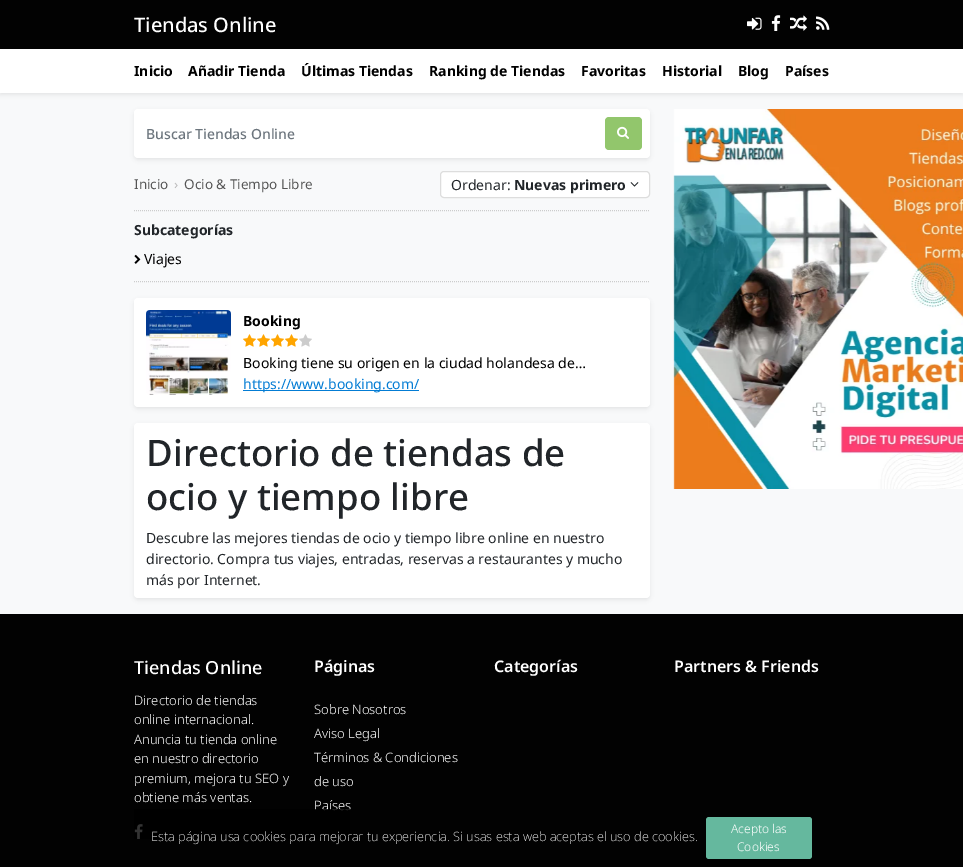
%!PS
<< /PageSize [963 867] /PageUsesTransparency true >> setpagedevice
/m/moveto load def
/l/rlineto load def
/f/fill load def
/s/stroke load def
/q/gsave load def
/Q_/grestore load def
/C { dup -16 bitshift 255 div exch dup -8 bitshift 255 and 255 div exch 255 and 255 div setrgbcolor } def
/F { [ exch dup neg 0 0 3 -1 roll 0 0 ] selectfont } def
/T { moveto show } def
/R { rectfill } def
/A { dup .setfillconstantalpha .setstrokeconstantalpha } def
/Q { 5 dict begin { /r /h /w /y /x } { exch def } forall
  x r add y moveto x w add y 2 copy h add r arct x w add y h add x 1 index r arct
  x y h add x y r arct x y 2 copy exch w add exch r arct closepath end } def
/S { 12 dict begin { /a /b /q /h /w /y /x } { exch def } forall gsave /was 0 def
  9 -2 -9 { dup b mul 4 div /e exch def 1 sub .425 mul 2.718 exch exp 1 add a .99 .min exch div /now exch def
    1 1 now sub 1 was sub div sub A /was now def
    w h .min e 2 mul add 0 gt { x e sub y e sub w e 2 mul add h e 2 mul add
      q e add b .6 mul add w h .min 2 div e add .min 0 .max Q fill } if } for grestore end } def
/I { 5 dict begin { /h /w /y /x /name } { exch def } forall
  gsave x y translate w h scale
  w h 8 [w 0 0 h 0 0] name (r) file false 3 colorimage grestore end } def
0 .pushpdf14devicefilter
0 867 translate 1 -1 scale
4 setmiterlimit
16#F8F9FA C
0 0 963 867 R
16#020202 C
0 0 963 49 R
/NotoSans-Medium 20 F
16#FFFFFF C
(Tiendas Online) 134 32 T
(1.rgb) 747 17 15 13 I
(2.rgb) 771 15 10 16 I
(3.rgb) 790 15 17 16 I
(4.rgb) 816 16 14 14 I
16#000000 C
0 51 963 44 0 2 .07 S
16#FFFFFF C
0 49 963 44 R
/NotoSans-Bold 14 F
16#000000 C
(Inicio) 134 76 T
(Añadir Tienda) 188 76 T
(Últimas Tiendas) 301 76 T
(Ranking de Tiendas) 429 76 T
(Favoritas) 581 76 T
(Historial) 662 76 T
(Blog) 738 76 T
(Países) 785 76 T
134 111 516 49 4 2 .07 S
16#FFFFFF C
134 109 516 49 4 Q f
/NotoSans-Medium 14 F
16#6C757D C
(Buscar Tiendas Online) 146 139 T
16#92C66C C
605 117 37 33 4 Q f
(5.rgb) 617 126 12 13 I
/NotoSans-Regular 13.5 F
16#555555 C
(Inicio) 134 189 T
16#BBBBBB C
(›) 174 189 T
16#555555 C
(Ocio & Tiempo Libre) 184 189 T
16#FFFFFF C
440.5 171.5 209 26 3.5 Q q f Q_
16#DDDDDD C
s
/NotoSans-Regular 14 F
16#212529 C
(Ordenar:) 451 190 T
/NotoSans-Bold 14 F
(Nuevas primero) 514 190 T
(6.rgb) 630 182 9 5 I
16#CCCCCC C
[1 1] 0 setdash
134 210.5 m 516 0 l s
134 281.5 m 516 0 l s
16#212529 C
(Subcategorías) 134 235 T
(7.rgb) 134 254 7 10 I
/NotoSans-Regular 14 F
16#000000 C
(Viajes) 144 264 T
134 300 516 109 4 2 .07 S
16#FFFFFF C
134 298 516 109 4 Q f
(8.rgb) 146 310 85 85 I
/NotoSans-Bold 14 F
16#000000 C
(Booking) 243 326 T
(9.rgb) 243 334 13 13 I
(9.rgb) 257 334 13 13 I
(9.rgb) 271 334 13 13 I
(9.rgb) 285 334 13 13 I
(10.rgb) 299 334 13 13 I
/NotoSans-Regular 14 F
(Booking tiene su origen en la ciudad holandesa de…) 243 368 T
16#037CD4 C
243 390 176 1 R
(https://www.booking.com/) 243 389 T
16#000000 C
134 425 516 175 4 2 .07 S
16#FFFFFF C
134 423 516 175 4 Q f
/NotoSans-Medium 36.5 F
16#212529 C
(Directorio de tiendas de) 146 466 T
(ocio y tiempo libre) 146 510 T
/NotoSans-Regular 14 F
(Descubre las mejores tiendas de ocio y tiempo libre online en nuestro) 146 543 T
(directorio. Compra tus viajes, entradas, reservas a restaurantes y mucho) 146 564 T
(más por Internet.) 146 585 T
(11.rgb) 673 109 290 380 I
16#020202 C
0 614 963 253 R
/NotoSans-Medium 18 F
16#FFFFFF C
(Tiendas Online) 134 674 T
/NotoSans-Light 13 F
(Directorio de tiendas) 134 705 T
(online internacional.) 134 724 T
(Anuncia tu tienda online) 134 744 T
(en nuestro directorio) 134 763 T
(premium, mejora tu SEO y) 134 783 T
(obtiene más ventas.) 134 802 T
(12.rgb) 134 824 9 15 I
/NotoSans-SemiBold 16 F
(Páginas) 314 672 T
/NotoSans-Light 13 F
(Sobre Nosotros) 314 714 T
(Aviso Legal) 314 738 T
(Términos & Condiciones) 314 762 T
(de uso) 314 786 T
(Países) 314 810 T
/NotoSans-SemiBold 16 F
(Categorías) 494 672 T
(Partners & Friends) 674 672 T
0.8 A
16#000000 C
134 809 216 30 R
/NotoSans-ExtraLight 12.8 F
1 A
16#FFFFFF C
(Esta página usa cookies para mejorar tu experiencia. Si usas esta web aceptas el uso de cookies.) 151 841 T
16#65B89E C
706 817 106 42 3 Q f
/NotoSans-Light 12 F
16#FFFFFF C
(Acepto las) 731 833 T
(Cookies) 737 851 T
.poppdf14devicefilter showpage
